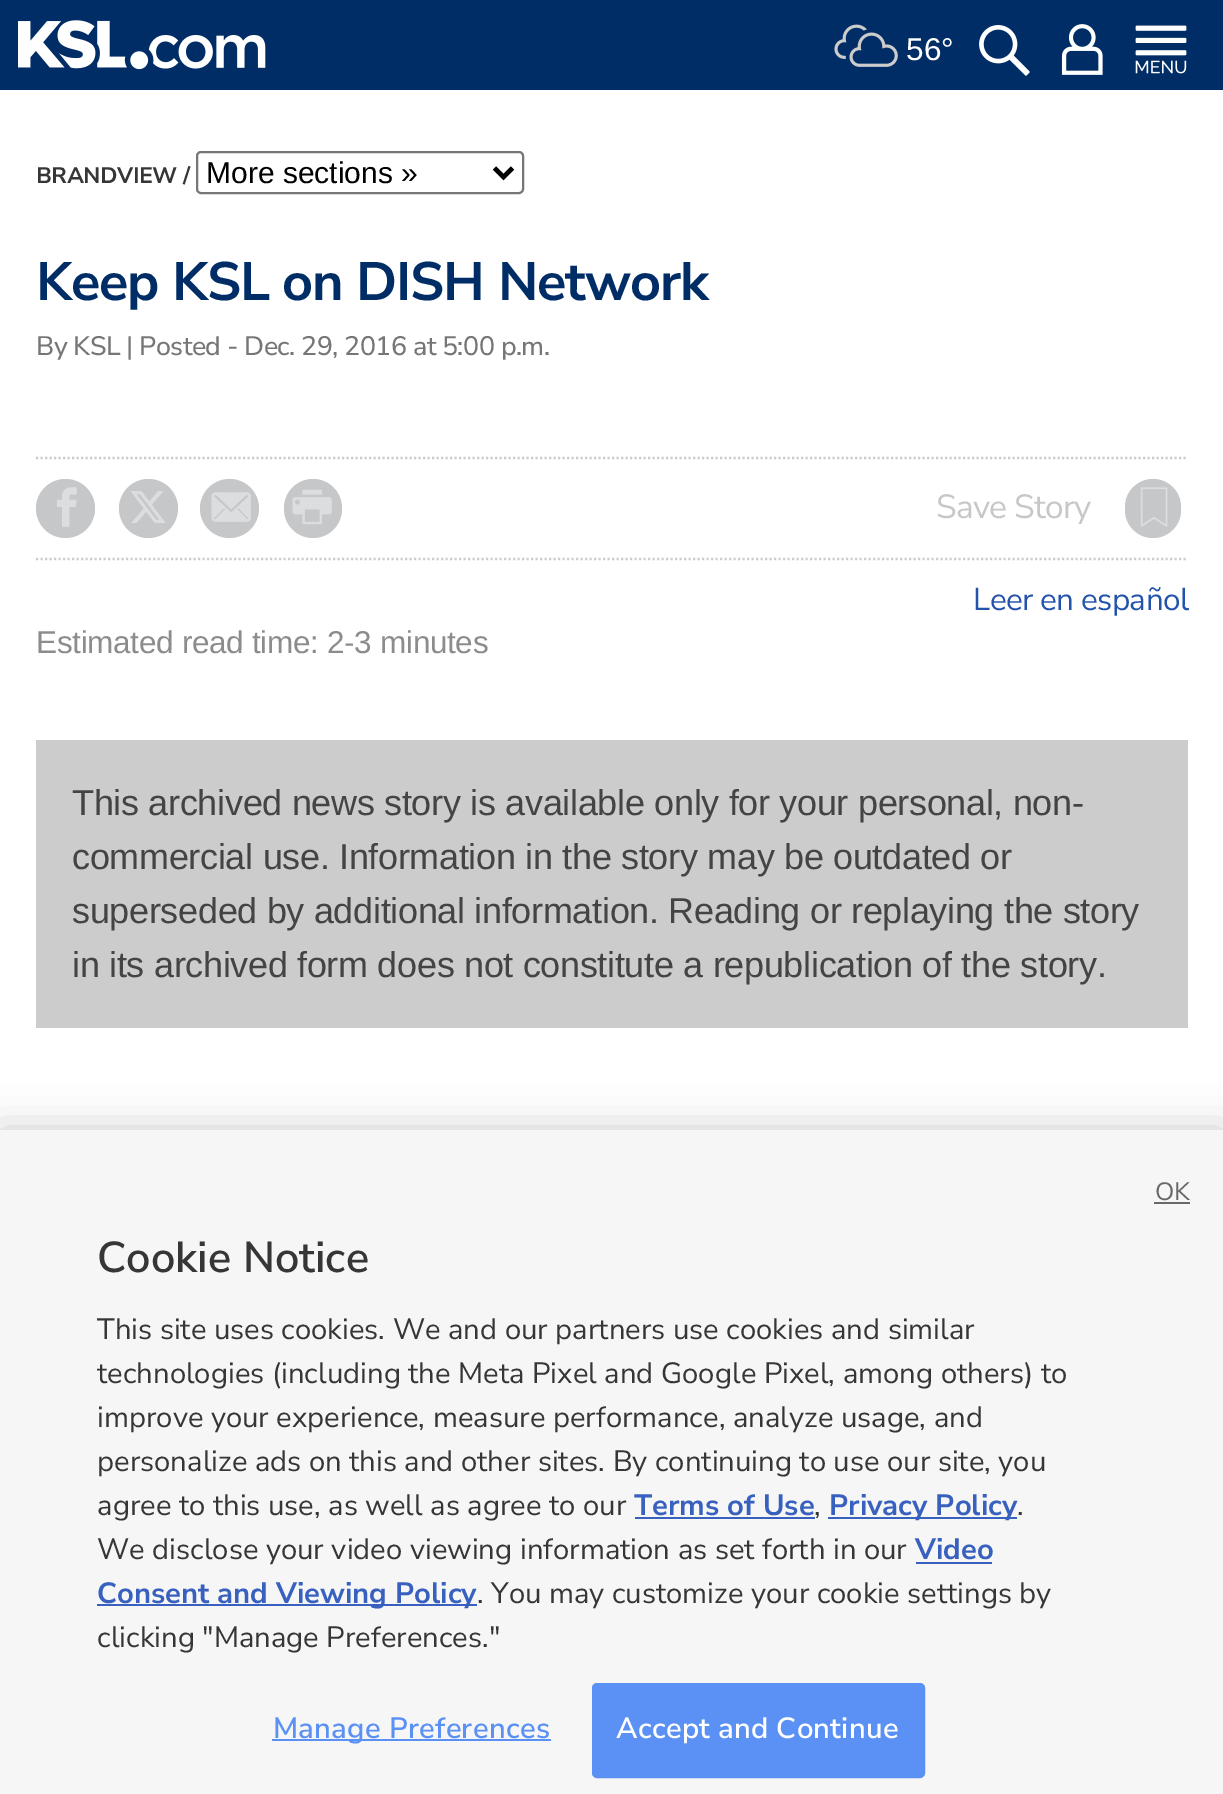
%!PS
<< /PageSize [1223 1794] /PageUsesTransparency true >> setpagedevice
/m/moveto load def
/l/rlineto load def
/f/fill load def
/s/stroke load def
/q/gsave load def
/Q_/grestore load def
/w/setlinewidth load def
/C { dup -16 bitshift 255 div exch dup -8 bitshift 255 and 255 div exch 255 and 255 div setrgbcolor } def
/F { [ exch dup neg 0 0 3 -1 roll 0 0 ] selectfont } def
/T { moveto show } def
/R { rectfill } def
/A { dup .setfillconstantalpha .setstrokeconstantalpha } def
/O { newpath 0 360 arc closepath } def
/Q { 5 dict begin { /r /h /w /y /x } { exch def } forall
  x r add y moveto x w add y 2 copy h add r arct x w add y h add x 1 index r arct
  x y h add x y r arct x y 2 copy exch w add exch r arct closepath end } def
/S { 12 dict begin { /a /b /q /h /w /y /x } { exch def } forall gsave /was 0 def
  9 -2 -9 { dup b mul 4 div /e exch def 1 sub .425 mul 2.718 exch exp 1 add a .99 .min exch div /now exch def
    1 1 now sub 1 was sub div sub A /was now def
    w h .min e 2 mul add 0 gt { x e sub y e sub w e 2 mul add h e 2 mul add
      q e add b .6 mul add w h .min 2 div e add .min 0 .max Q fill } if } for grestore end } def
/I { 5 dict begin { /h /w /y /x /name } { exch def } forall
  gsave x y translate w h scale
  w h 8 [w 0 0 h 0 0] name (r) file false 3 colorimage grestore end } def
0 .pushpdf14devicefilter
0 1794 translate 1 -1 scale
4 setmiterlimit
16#FFFFFF C
0 0 1223 1794 R
16#002D65 C
0 0 1223 90 R
(1.rgb) 18 20 248 50 I
(2.rgb) 834 24 64 43 I
/LiberationSans-Regular 31.5 F
16#FFFFFF C
(56°) 906 60 T
(3.rgb) 979 25 51 51 I
(4.rgb) 1061 24 42 51 I
(5.rgb) 1135 25 52 49 I
/NunitoSans-Bold 22.5 F
16#363636 C
36 183 m -.6 0 (BRANDVIEW /) ashow
16#767676 C
2 w
197 152 326 41 4 Q s
16#000000 C
4.5 w
494.5 168 m 9 9 l 9 -9 l s
/LiberationSans-Regular 30 F
(More sections ») 206 183 T
/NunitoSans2-Bold 54 F
16#002D65 C
36 300 m -1.1 0 (Keep KSL on DISH Network) ashow
/NunitoSans-Medium 26.75 F
16#767676 C
36 355 m -.55 0 (By KSL | Posted - Dec. 29, 2016 at 5:00 p.m.) ashow
16#CCCCCC C
2.2 w
[2.25 2.25] 0 setdash
36 458 m 1152 0 l s
16#C5C7C8 C
65.5 508.5 29.5 O f
(6.rgb) 57 487 20 40 I
148.5 508.5 29.5 O f
(7.rgb) 130 491 36 32 I
229.5 508.5 29.5 O f
(8.rgb) 211 492 40 30 I
284 479 58 59 29 Q f
(9.rgb) 292 489 40 36 I
/NunitoSans-Regular 33.5 F
936 518 m -.75 0 (Save Story) ashow
1125 479 56 59 28 Q f
(10.rgb) 1140 487 28 40 I
16#CCCCCC C
36 559 m 1152 0 l s
/NunitoSans-Regular 31.5 F
16#2354AC C
973 610 m -.6 0 (Leer en español) ashow
/LiberationSans-Regular 31.5 F
16#8C8C8C C
36 653 m -.32 0 (Estimated read time: 2-3 minutes) ashow
16#CCCCCC C
36 740 1152 288 R
/LiberationSans-Regular 36 F
16#444444 C
72 815 m -.32 0 (This archived news story is available only for your personal, non-) ashow
72 869 m -.32 0 (commercial use. Information in the story may be outdated or) ashow
72 923 m -.32 0 (superseded by additional information. Reading or replaying the story) ashow
72 977 m -.32 0 (in its archived form does not constitute a republication of the story.) ashow
16#000000 C
0 1130 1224 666 0 20 .2 S
16#F6F6F6 C
0 1130 1223 664 R
/NunitoSans2-Regular 25 F
16#696969 C
(OK) 1155 1200 T
1154 1202 36 2 R
/NunitoSans-SemiBold 43.25 F
16#363636 C
(Cookie Notice) 97 1272 T
/NunitoSans-Regular 29.25 F
(This site uses cookies. We and our partners use cookies and similar) 97 1339 T
(technologies \(including the Meta Pixel and Google Pixel, among others\) to) 97 1383 T
(improve your experience, measure performance, analyze usage, and) 97 1427 T
(personalize ads on this and other sites. By continuing to use our site, you) 97 1471 T
(agree to this use, as well as agree to our) 97 1515 T
/NunitoSans2-Bold 29.25 F
16#3860BE C
(Terms of Use) 634 1515 T
635 1517 180 2 R
/NunitoSans-Regular 29.25 F
16#363636 C
(,) 814 1515 T
16#3860BE C
828 1517 189 2 R
/NunitoSans2-Bold 29.25 F
(Privacy Policy) 829 1515 T
/NunitoSans-Regular 29.25 F
16#363636 C
(.) 1017 1515 T
(We disclose your video viewing information as set forth in our) 97 1559 T
/NunitoSans2-Bold 29.25 F
16#3860BE C
(Video) 915 1559 T
916 1562 76 2 R
97 1604 380 2 R
(Consent and Viewing Policy) 97 1603 T
/NunitoSans-Regular 29.25 F
16#363636 C
(. You may customize your cookie settings by) 477 1603 T
(clicking "Manage Preferences.") 97 1647 T
16#5B91F4 C
272 1739 279 2 R
/NunitoSans-SemiBold 29.25 F
273 1738 m .25 0 (Manage Preferences) ashow
593 1684 331 93 4 Q q f Q_
2 w
[] 0 setdash
s
16#FFFFFF C
616 1738 m .25 0 (Accept and Continue) ashow
.poppdf14devicefilter showpage
